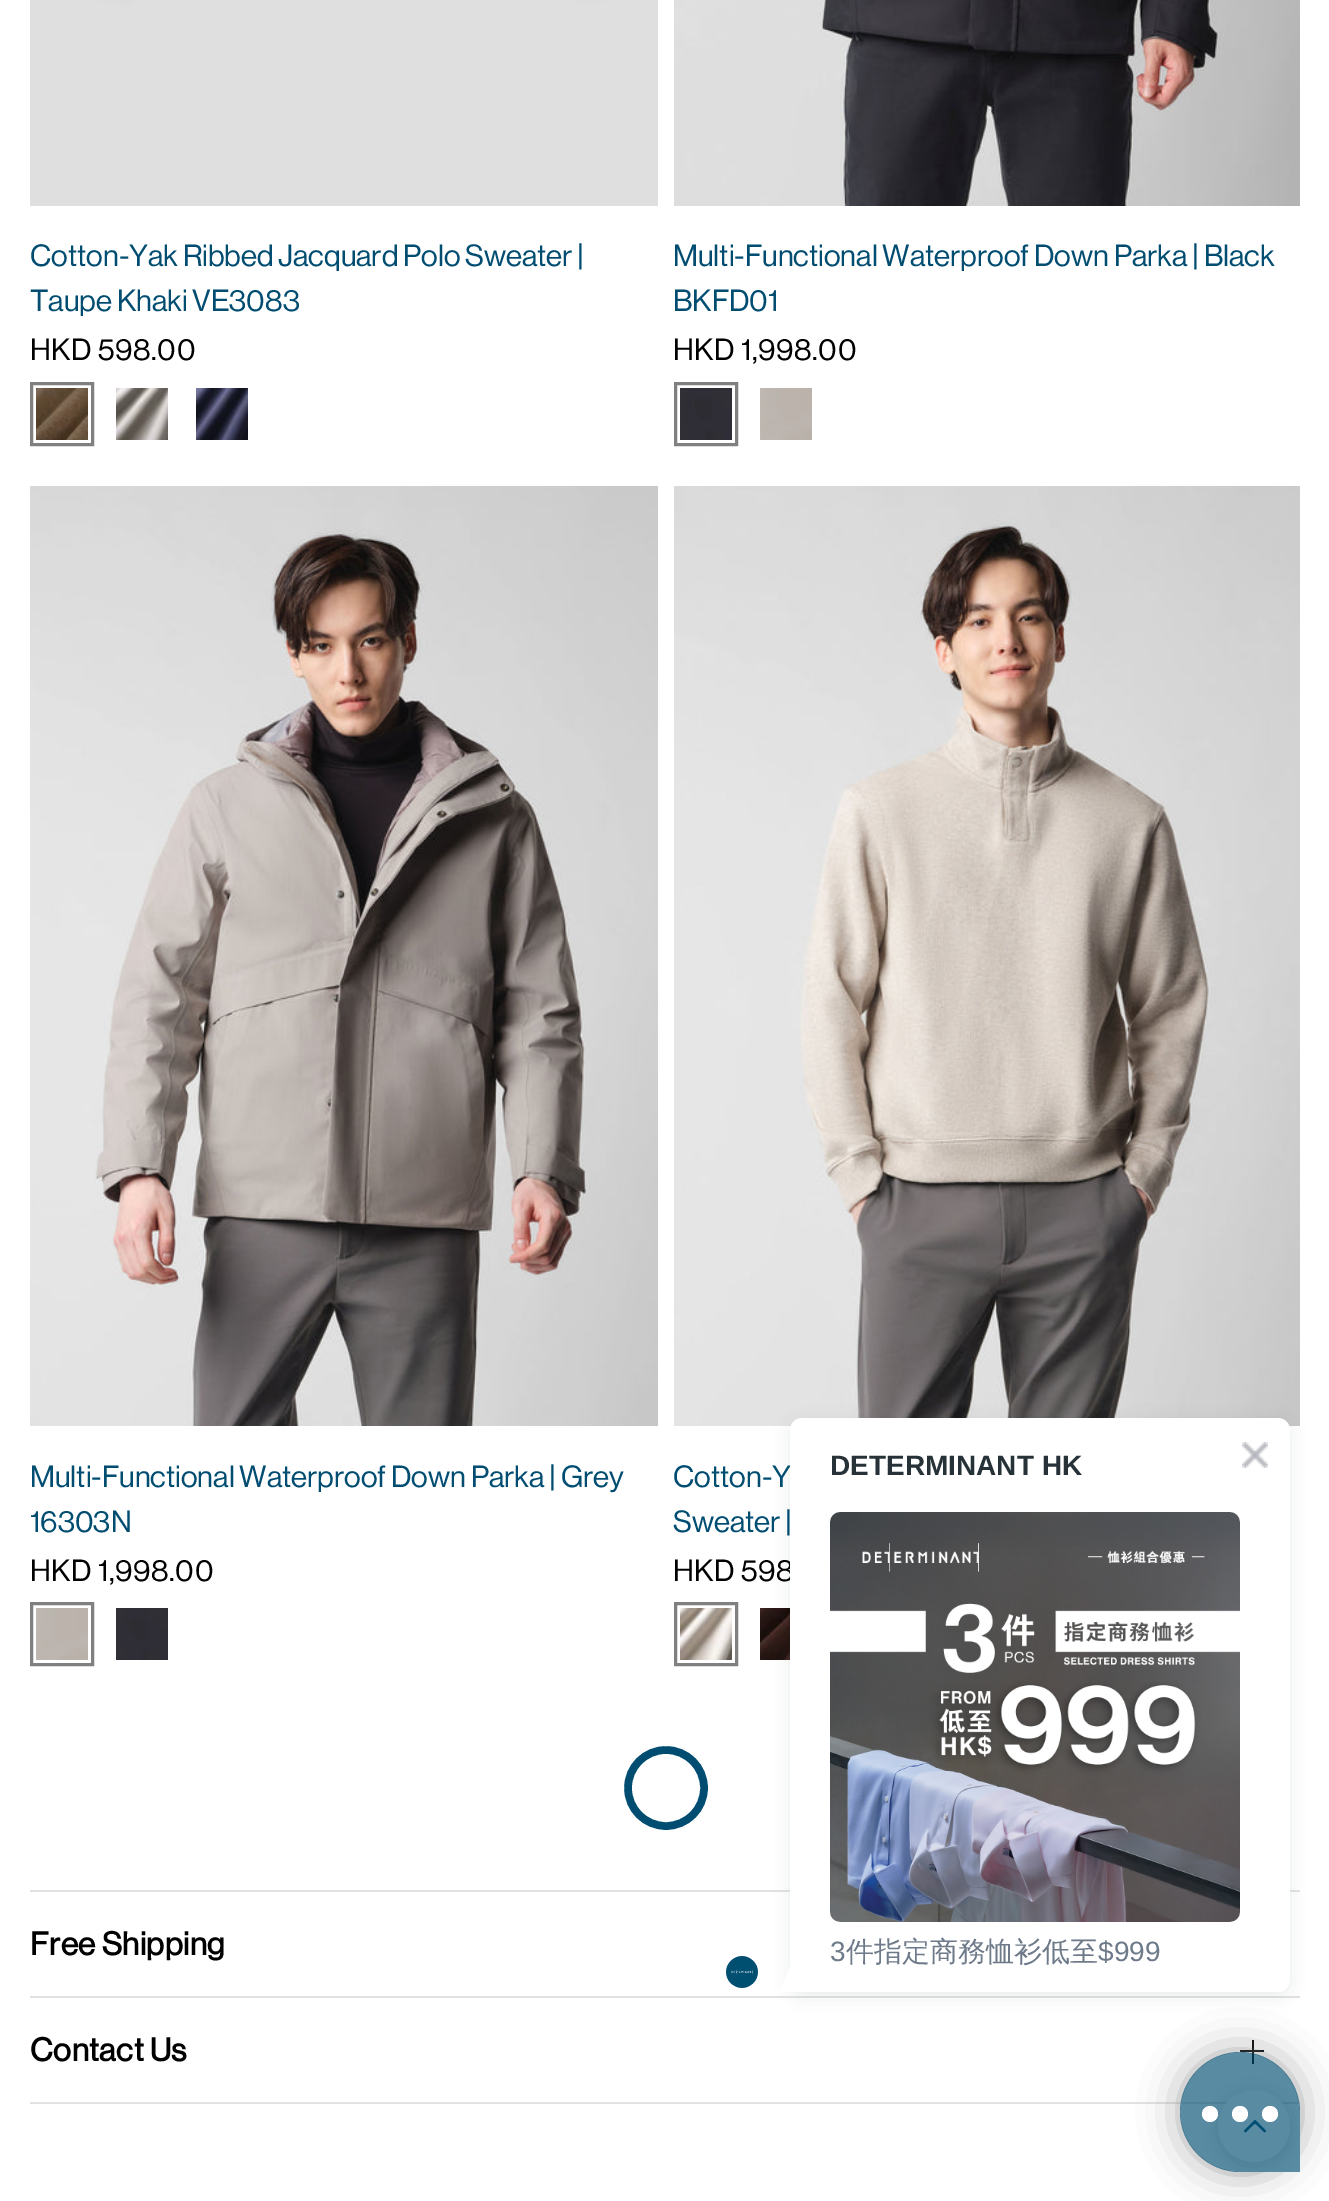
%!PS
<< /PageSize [1329 2201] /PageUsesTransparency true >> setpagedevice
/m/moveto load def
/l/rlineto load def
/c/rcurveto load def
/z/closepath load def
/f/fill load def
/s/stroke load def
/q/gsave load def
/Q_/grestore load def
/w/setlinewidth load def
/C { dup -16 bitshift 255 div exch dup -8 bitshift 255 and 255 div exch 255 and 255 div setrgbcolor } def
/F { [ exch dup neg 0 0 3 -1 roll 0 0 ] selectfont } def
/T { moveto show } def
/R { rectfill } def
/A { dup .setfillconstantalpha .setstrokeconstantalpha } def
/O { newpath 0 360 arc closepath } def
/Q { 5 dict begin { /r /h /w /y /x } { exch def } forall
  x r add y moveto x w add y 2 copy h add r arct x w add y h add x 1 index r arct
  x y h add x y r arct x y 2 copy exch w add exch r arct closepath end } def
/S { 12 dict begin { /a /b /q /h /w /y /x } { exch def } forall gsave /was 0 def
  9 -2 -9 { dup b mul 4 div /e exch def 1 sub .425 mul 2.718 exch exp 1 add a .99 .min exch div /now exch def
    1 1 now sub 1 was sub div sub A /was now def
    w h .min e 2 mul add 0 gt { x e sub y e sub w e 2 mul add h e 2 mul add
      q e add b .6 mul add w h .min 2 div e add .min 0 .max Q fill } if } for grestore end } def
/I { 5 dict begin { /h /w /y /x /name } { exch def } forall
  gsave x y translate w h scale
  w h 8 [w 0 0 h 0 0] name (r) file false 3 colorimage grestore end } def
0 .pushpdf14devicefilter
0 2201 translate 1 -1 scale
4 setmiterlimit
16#FFFFFF C
0 0 1329 2201 R
(1.rgb) 30 0 628 206 I
/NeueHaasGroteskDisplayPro-Regular 30 F
16#004D71 C
(Cotton-Yak Ribbed Jacquard Polo Sweater |) 30 266 T
(Taupe Khaki VE3083) 30 311 T
16#000000 C
30 360 m .6 0 (HKD 598.00) ashow
16#808080 C
3 w
31.5 383.5 61 61 rectstroke
(2.rgb) 36 388 52 52 I
(3.rgb) 116 388 52 52 I
(4.rgb) 196 388 52 52 I
(5.rgb) 674 0 626 206 I
16#004D71 C
(Multi-Functional Waterproof Down Parka | Black) 673 266 T
(BKFD01) 673 311 T
16#000000 C
673 360 m .6 0 (HKD 1,998.00) ashow
16#808080 C
675.5 383.5 61 61 rectstroke
(6.rgb) 680 388 52 52 I
(7.rgb) 760 388 52 52 I
(8.rgb) 30 486 628 940 I
16#004D71 C
(Multi-Functional Waterproof Down Parka | Grey) 30 1487 T
(16303N) 30 1532 T
16#000000 C
30 1581 m .6 0 (HKD 1,998.00) ashow
16#808080 C
31.5 1603.5 61 61 rectstroke
(7.rgb) 36 1608 52 52 I
(6.rgb) 116 1608 52 52 I
(9.rgb) 674 486 626 940 I
16#004D71 C
(Cotton-Y) 673 1487 T
(Sweater |) 673 1532 T
16#000000 C
673 1581 m .6 0 (HKD 598) ashow
16#808080 C
675.5 1603.5 61 61 rectstroke
(10.rgb) 680 1608 52 52 I
(11.rgb) 760 1608 30 52 I
16#004D71 C
7.6 w
666 1750 m 21 0 38 17 38 38 c 0 21 -17 38 -38 38 c -21 0 -38 -17 -38 -38 c 0 -21 17 -38 38 -38 c s
16#E2E2E2 C
30 1890 1270 2 R
30 1996 1270 2 R
/NeueHaasGroteskDisplayPro-Bold 32 F
16#000000 C
30 1955 m .6 0 (Free Shipping) ashow
16#E2E2E2 C
30 2102 1270 2 R
16#000000 C
30 2061 m .6 0 (Contact Us) ashow
1252 2040 2 24 R
1240 2050 24 2 R
16#232F35 C
790 1422 500 574 12 8 .09 S
16#FFFFFF C
802 1418 m 476 0 l 6.5 0 12 5.5 12 12 c 0 550 l 0 6.5 -5.5 12 -12 12 c -488 0 l 0 -562 l 0 -6.5 5.5 -12 12 -12 c z f
/LiberationSans-Bold 28 F
16#263238 C
(DETERMINANT HK) 830 1475 T
(12.rgb) 1242 1442 26 26 I
(13.rgb) 830 1512 410 410 I
/LiberationSans-Regular 28 F
16#6E7A89 C
(3) 830 1961 T
/WenQuanYiZenHei-Medium 28 F
(件指定商務恤衫低至) 846 1961 T
/LiberationSans-Regular 28 F
($999) 1098 1961 T
(14.rgb) 726 1956 32 32 I
16#FFFFFF C
790 1992 m -10 0 l 10 -26 l z f
16#000000 C
1218 2094 72 72 36 10 .15 S
16#FFFFFF C
1254 2126 36 O f
(15.rgb) 1244 2120 22 13 I
q
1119 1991 m 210 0 l 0 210 l -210 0 l z 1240 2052 m 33 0 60 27 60 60 c 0 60 l -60 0 l -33 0 -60 -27 -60 -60 c 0 -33 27 -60 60 -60 c z eoclip newpath
16#777777 C
1180 2052 120 120 60 20 .64 S
Q_
0.65 A
16#004D71 C
1240 2052 m 33 0 60 27 60 60 c 0 60 l -60 0 l -33 0 -60 -27 -60 -60 c 0 -33 27 -60 60 -60 c z f
1 A
16#FFFFFF C
1210 2114 8 O f
1240 2114 8 O f
1270 2114 8 O f
.poppdf14devicefilter showpage
